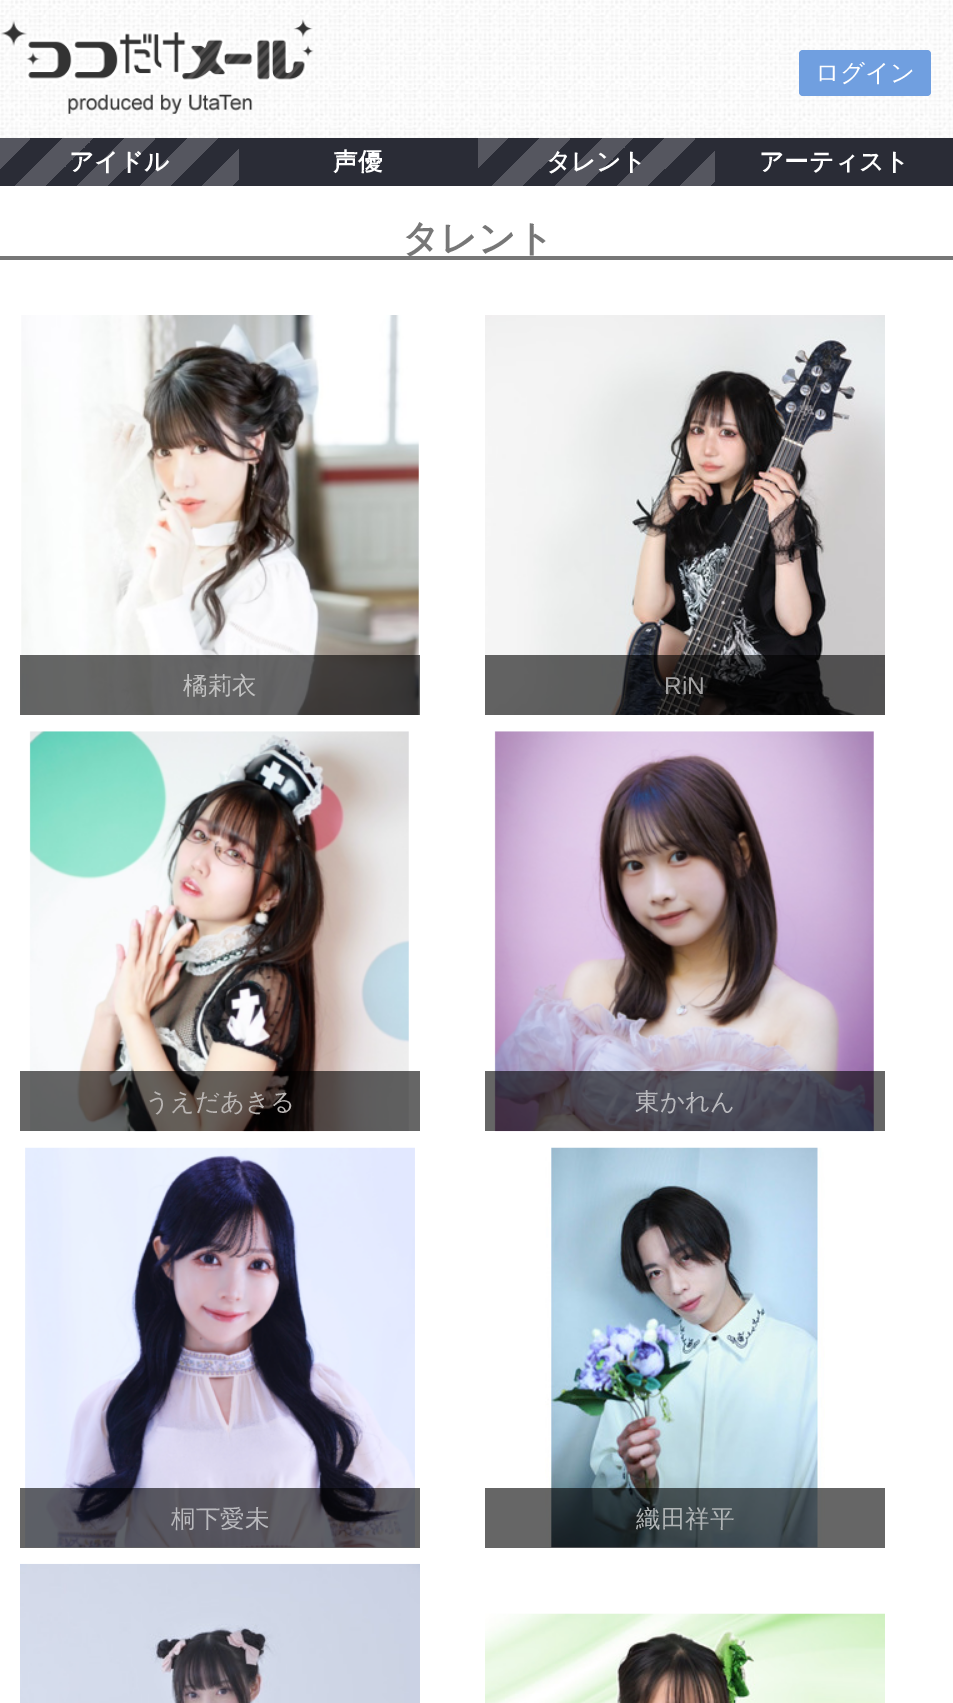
%!PS
<< /PageSize [953 1703] /PageUsesTransparency true >> setpagedevice
/m/moveto load def
/l/rlineto load def
/z/closepath load def
/f/fill load def
/q/gsave load def
/Q_/grestore load def
/C { dup -16 bitshift 255 div exch dup -8 bitshift 255 and 255 div exch 255 and 255 div setrgbcolor } def
/F { [ exch dup neg 0 0 3 -1 roll 0 0 ] selectfont } def
/T { moveto show } def
/R { rectfill } def
/A { dup .setfillconstantalpha .setstrokeconstantalpha } def
/Q { 5 dict begin { /r /h /w /y /x } { exch def } forall
  x r add y moveto x w add y 2 copy h add r arct x w add y h add x 1 index r arct
  x y h add x y r arct x y 2 copy exch w add exch r arct closepath end } def
/I { 5 dict begin { /h /w /y /x /name } { exch def } forall
  gsave x y translate w h scale
  w h 8 [w 0 0 h 0 0] name (r) file false 3 colorimage grestore end } def
0 .pushpdf14devicefilter
0 1703 translate 1 -1 scale
4 setmiterlimit
16#FFFFFF C
0 0 953 1703 R
(1.rgb) 0 0 953 138 I
(2.rgb) 0 19 314 95 I
16#709FE0 C
799 50 132 46 4 Q f
/WenQuanYiZenHei-Medium 24.5 F
16#FFFFFF C
(ログイン) 815 81 T
16#2A2C36 C
239 138 714 48 R
q 0 138 m 63 0 l 0 48 l -63 0 l z clip newpath
<< /ShadingType 2 /ColorSpace /DeviceRGB /Coords [63 200 0 138] /Extend [true true] /Function << /FunctionType 3 /Domain [0 1] /Functions [<< /FunctionType 2 /Domain [0 1] /C0 [.165 .173 .212] /C1 [.165 .173 .212] /N 1 >> << /FunctionType 2 /Domain [0 1] /C0 [.333 .337 .373] /C1 [.333 .337 .373] /N 1 >> << /FunctionType 2 /Domain [0 1] /C0 [.165 .173 .212] /C1 [.165 .173 .212] /N 1 >> << /FunctionType 2 /Domain [0 1] /C0 [.333 .337 .373] /C1 [.333 .337 .373] /N 1 >>] /Bounds [.25 .5 .75] /Encode [0 1 0 1 0 1 0 1] >> >> shfill Q_
q 63 138 m 62 0 l 0 48 l -62 0 l z clip newpath
<< /ShadingType 2 /ColorSpace /DeviceRGB /Coords [125 200 63 138] /Extend [true true] /Function << /FunctionType 3 /Domain [0 1] /Functions [<< /FunctionType 2 /Domain [0 1] /C0 [.165 .173 .212] /C1 [.165 .173 .212] /N 1 >> << /FunctionType 2 /Domain [0 1] /C0 [.333 .337 .373] /C1 [.333 .337 .373] /N 1 >> << /FunctionType 2 /Domain [0 1] /C0 [.165 .173 .212] /C1 [.165 .173 .212] /N 1 >> << /FunctionType 2 /Domain [0 1] /C0 [.333 .337 .373] /C1 [.333 .337 .373] /N 1 >>] /Bounds [.25 .5 .75] /Encode [0 1 0 1 0 1 0 1] >> >> shfill Q_
q 125 138 m 63 0 l 0 48 l -63 0 l z clip newpath
<< /ShadingType 2 /ColorSpace /DeviceRGB /Coords [188 200 125 138] /Extend [true true] /Function << /FunctionType 3 /Domain [0 1] /Functions [<< /FunctionType 2 /Domain [0 1] /C0 [.165 .173 .212] /C1 [.165 .173 .212] /N 1 >> << /FunctionType 2 /Domain [0 1] /C0 [.333 .337 .373] /C1 [.333 .337 .373] /N 1 >> << /FunctionType 2 /Domain [0 1] /C0 [.165 .173 .212] /C1 [.165 .173 .212] /N 1 >> << /FunctionType 2 /Domain [0 1] /C0 [.333 .337 .373] /C1 [.333 .337 .373] /N 1 >>] /Bounds [.25 .5 .75] /Encode [0 1 0 1 0 1 0 1] >> >> shfill Q_
q 188 138 m 51 0 l 0 48 l -51 0 l z clip newpath
<< /ShadingType 2 /ColorSpace /DeviceRGB /Coords [250 200 188 138] /Extend [true true] /Function << /FunctionType 3 /Domain [0 1] /Functions [<< /FunctionType 2 /Domain [0 1] /C0 [.165 .173 .212] /C1 [.165 .173 .212] /N 1 >> << /FunctionType 2 /Domain [0 1] /C0 [.333 .337 .373] /C1 [.333 .337 .373] /N 1 >> << /FunctionType 2 /Domain [0 1] /C0 [.165 .173 .212] /C1 [.165 .173 .212] /N 1 >> << /FunctionType 2 /Domain [0 1] /C0 [.333 .337 .373] /C1 [.333 .337 .373] /N 1 >>] /Bounds [.25 .5 .75] /Encode [0 1 0 1 0 1 0 1] >> >> shfill Q_
/WenQuanYiZenHei-Bold 24.5 F
16#FFFFFF C
(アイドル) 69 170 T
(声優) 333 170 T
q 478 138 m 62 0 l 0 48 l -62 0 l z clip newpath
<< /ShadingType 2 /ColorSpace /DeviceRGB /Coords [540 200 478 138] /Extend [true true] /Function << /FunctionType 3 /Domain [0 1] /Functions [<< /FunctionType 2 /Domain [0 1] /C0 [.165 .173 .212] /C1 [.165 .173 .212] /N 1 >> << /FunctionType 2 /Domain [0 1] /C0 [.333 .337 .373] /C1 [.333 .337 .373] /N 1 >> << /FunctionType 2 /Domain [0 1] /C0 [.165 .173 .212] /C1 [.165 .173 .212] /N 1 >> << /FunctionType 2 /Domain [0 1] /C0 [.333 .337 .373] /C1 [.333 .337 .373] /N 1 >>] /Bounds [.25 .5 .75] /Encode [0 1 0 1 0 1 0 1] >> >> shfill Q_
q 540 138 m 63 0 l 0 48 l -63 0 l z clip newpath
<< /ShadingType 2 /ColorSpace /DeviceRGB /Coords [603 200 540 138] /Extend [true true] /Function << /FunctionType 3 /Domain [0 1] /Functions [<< /FunctionType 2 /Domain [0 1] /C0 [.165 .173 .212] /C1 [.165 .173 .212] /N 1 >> << /FunctionType 2 /Domain [0 1] /C0 [.333 .337 .373] /C1 [.333 .337 .373] /N 1 >> << /FunctionType 2 /Domain [0 1] /C0 [.165 .173 .212] /C1 [.165 .173 .212] /N 1 >> << /FunctionType 2 /Domain [0 1] /C0 [.333 .337 .373] /C1 [.333 .337 .373] /N 1 >>] /Bounds [.25 .5 .75] /Encode [0 1 0 1 0 1 0 1] >> >> shfill Q_
q 603 138 m 62 0 l 0 48 l -62 0 l z clip newpath
<< /ShadingType 2 /ColorSpace /DeviceRGB /Coords [665 200 603 138] /Extend [true true] /Function << /FunctionType 3 /Domain [0 1] /Functions [<< /FunctionType 2 /Domain [0 1] /C0 [.165 .173 .212] /C1 [.165 .173 .212] /N 1 >> << /FunctionType 2 /Domain [0 1] /C0 [.333 .337 .373] /C1 [.333 .337 .373] /N 1 >> << /FunctionType 2 /Domain [0 1] /C0 [.165 .173 .212] /C1 [.165 .173 .212] /N 1 >> << /FunctionType 2 /Domain [0 1] /C0 [.333 .337 .373] /C1 [.333 .337 .373] /N 1 >>] /Bounds [.25 .5 .75] /Encode [0 1 0 1 0 1 0 1] >> >> shfill Q_
q 665 138 m 50 0 l 0 48 l -50 0 l z clip newpath
<< /ShadingType 2 /ColorSpace /DeviceRGB /Coords [728 200 665 138] /Extend [true true] /Function << /FunctionType 3 /Domain [0 1] /Functions [<< /FunctionType 2 /Domain [0 1] /C0 [.165 .173 .212] /C1 [.165 .173 .212] /N 1 >> << /FunctionType 2 /Domain [0 1] /C0 [.333 .337 .373] /C1 [.333 .337 .373] /N 1 >> << /FunctionType 2 /Domain [0 1] /C0 [.165 .173 .212] /C1 [.165 .173 .212] /N 1 >> << /FunctionType 2 /Domain [0 1] /C0 [.333 .337 .373] /C1 [.333 .337 .373] /N 1 >>] /Bounds [.25 .5 .75] /Encode [0 1 0 1 0 1 0 1] >> >> shfill Q_
(タレント) 546 170 T
(アーティスト) 759 170 T
16#777777 C
0 256 953 4 R
/WenQuanYiZenHei-Bold 37 F
(タレント) 402 251 T
(3.rgb) 21 315 398 400 I
0.6 A
16#000000 C
20 655 400 60 R
/WenQuanYiZenHei-Medium 24.5 F
1 A
16#C1C1C1 C
(橘莉衣) 183 694 T
(4.rgb) 485 315 400 400 I
0.6 A
16#000000 C
485 655 400 60 R
/LiberationSans-Regular 24.5 F
1 A
16#A5A4A4 C
(RiN) 664 694 T
(5.rgb) 29 731 380 401 I
0.6 A
16#000000 C
20 1071 400 60 R
/WenQuanYiZenHei-Medium 24.5 F
1 A
16#B9B5B3 C
(うえだあきる) 145 1110 T
(6.rgb) 494 731 380 401 I
0.6 A
16#000000 C
485 1071 400 60 R
1 A
16#B9B9BD C
(東かれん) 635 1110 T
(7.rgb) 25 1147 390 401 I
0.6 A
16#000000 C
20 1488 400 60 R
1 A
16#B9B9BD C
(桐下愛未) 171 1527 T
(8.rgb) 545 1147 280 401 I
0.6 A
16#000000 C
485 1488 400 60 R
1 A
16#B0B4B5 C
(織田祥平) 636 1527 T
(9.rgb) 20 1563 400 140 I
(10.rgb) 485 1613 400 90 I
.poppdf14devicefilter showpage
